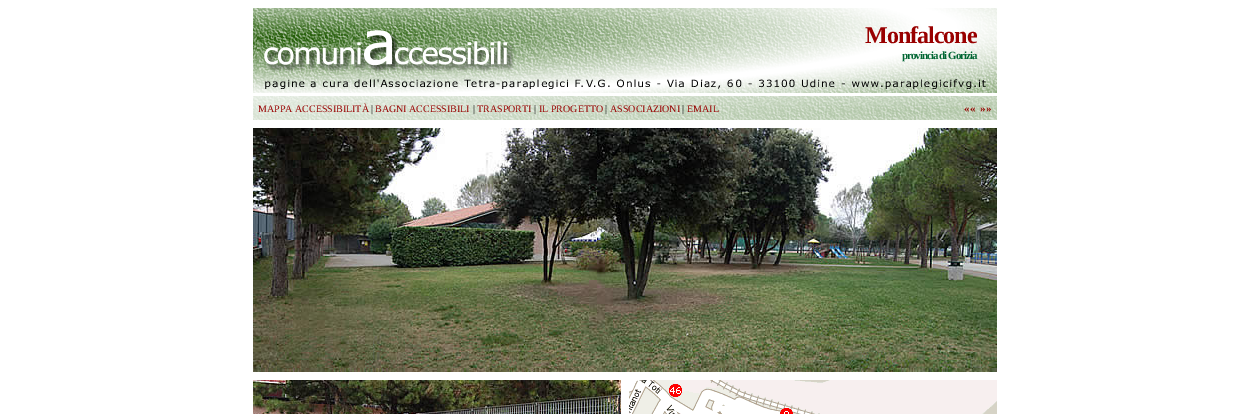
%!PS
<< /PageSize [1249 414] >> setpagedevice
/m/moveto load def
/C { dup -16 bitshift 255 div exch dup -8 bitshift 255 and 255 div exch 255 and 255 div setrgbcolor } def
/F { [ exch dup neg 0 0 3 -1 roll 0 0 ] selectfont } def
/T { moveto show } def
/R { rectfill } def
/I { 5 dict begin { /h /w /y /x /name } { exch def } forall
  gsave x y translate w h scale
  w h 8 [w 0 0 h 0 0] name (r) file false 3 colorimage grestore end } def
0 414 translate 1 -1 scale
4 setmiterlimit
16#FFFFFF C
0 0 1249 414 R
(1.rgb) 253 8 744 85 I
/LiberationSerif-Bold 24 F
16#990000 C
865 43 m -1 0 (Monfalcone) ashow
/LiberationSerif-Bold 11 F
16#006633 C
902 59 m -1 0 (provincia di Gorizia) ashow
(2.rgb) 253 96 744 24 I
/LiberationSerif-Regular 10 F
16#990000 C
(MAPPA ACCESSIBILITÀ) 258 112 T
16#000000 C
(|) 371 112 T
16#990000 C
(BAGNI ACCESSIBILI) 375 112 T
16#000000 C
(|) 473 112 T
16#990000 C
(TRASPORTI) 477 112 T
16#000000 C
(|) 534 112 T
16#990000 C
(IL PROGETTO) 539 112 T
16#000000 C
(|) 605 112 T
16#990000 C
(ASSOCIAZIONI) 610 112 T
16#000000 C
(|) 682 112 T
16#990000 C
(EMAIL) 687 112 T
/LiberationSerif-Bold 11 F
(««) 964 112 T
(»») 980 112 T
(3.rgb) 253 128 744 244 I
(4.rgb) 253 380 368 34 I
(5.rgb) 629 380 368 34 I
showpage
